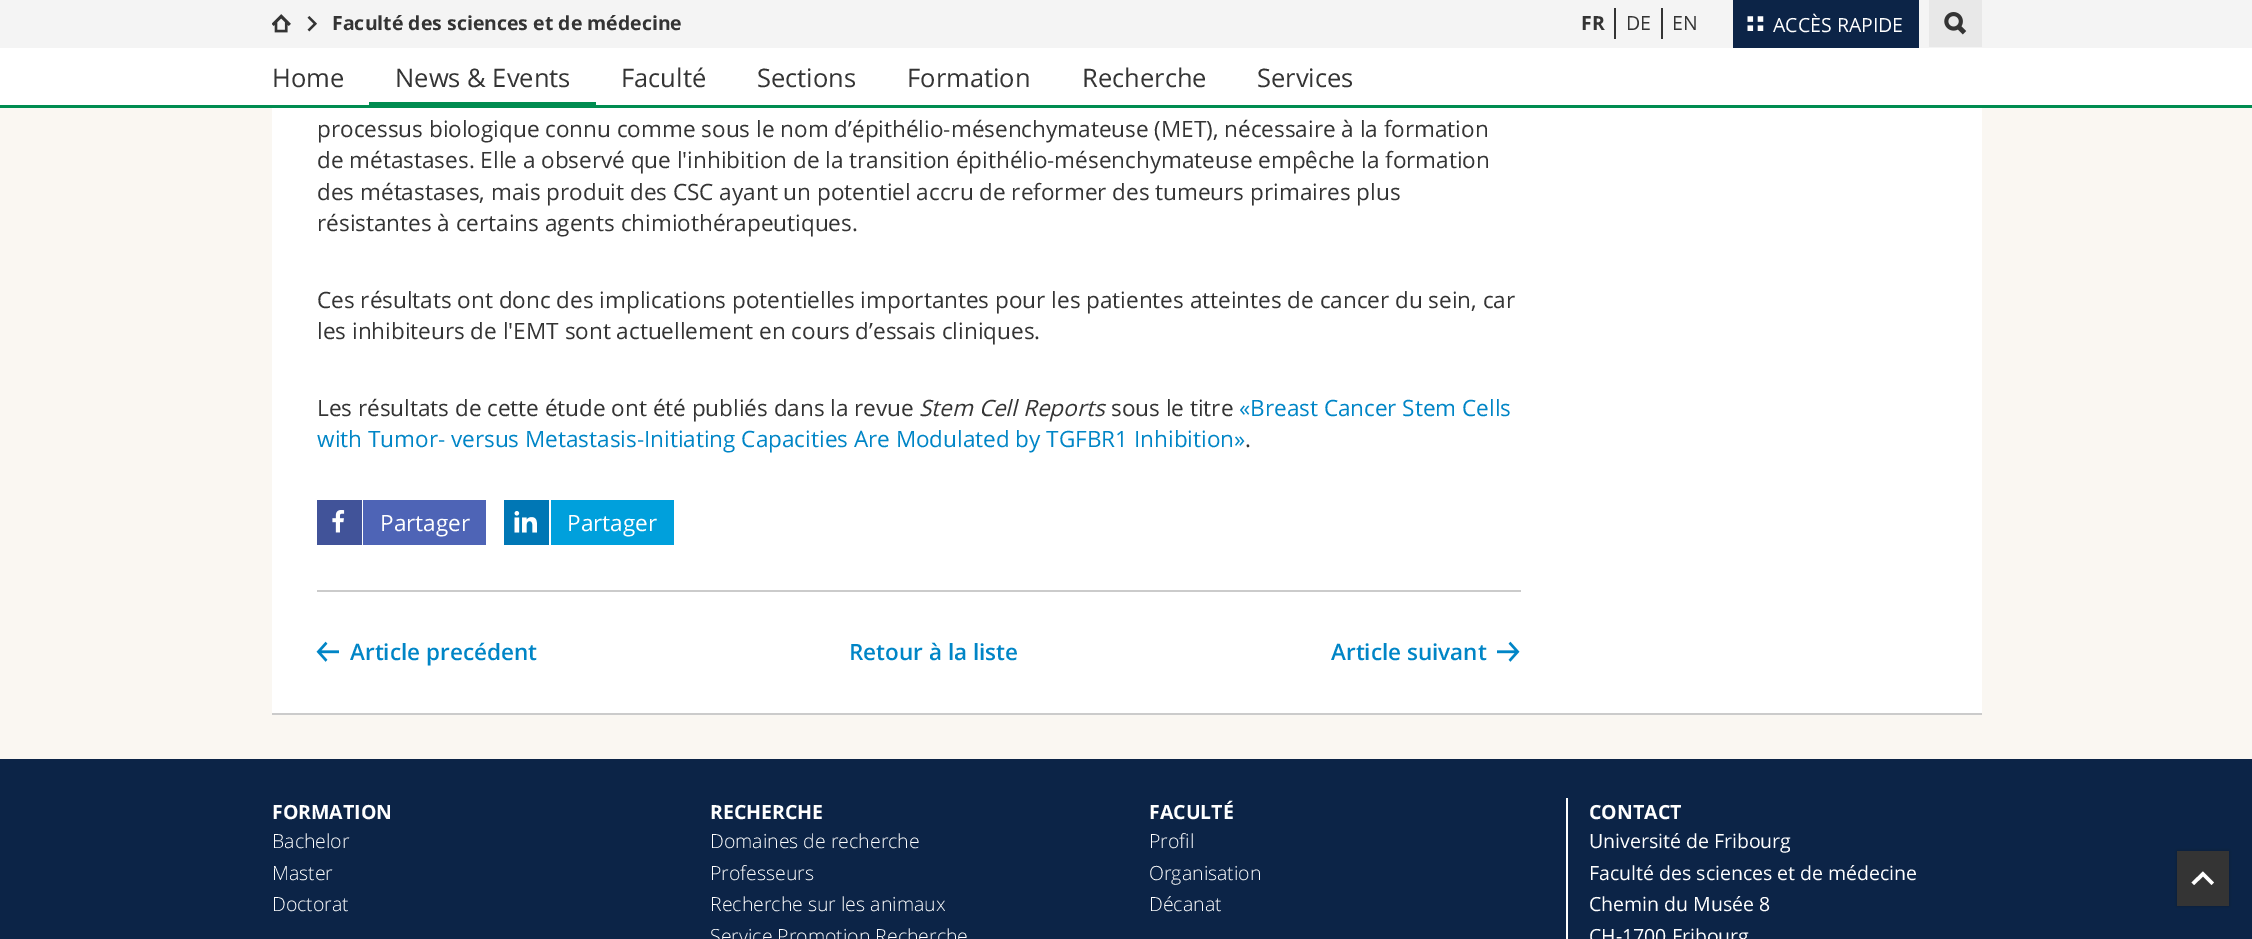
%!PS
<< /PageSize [2252 939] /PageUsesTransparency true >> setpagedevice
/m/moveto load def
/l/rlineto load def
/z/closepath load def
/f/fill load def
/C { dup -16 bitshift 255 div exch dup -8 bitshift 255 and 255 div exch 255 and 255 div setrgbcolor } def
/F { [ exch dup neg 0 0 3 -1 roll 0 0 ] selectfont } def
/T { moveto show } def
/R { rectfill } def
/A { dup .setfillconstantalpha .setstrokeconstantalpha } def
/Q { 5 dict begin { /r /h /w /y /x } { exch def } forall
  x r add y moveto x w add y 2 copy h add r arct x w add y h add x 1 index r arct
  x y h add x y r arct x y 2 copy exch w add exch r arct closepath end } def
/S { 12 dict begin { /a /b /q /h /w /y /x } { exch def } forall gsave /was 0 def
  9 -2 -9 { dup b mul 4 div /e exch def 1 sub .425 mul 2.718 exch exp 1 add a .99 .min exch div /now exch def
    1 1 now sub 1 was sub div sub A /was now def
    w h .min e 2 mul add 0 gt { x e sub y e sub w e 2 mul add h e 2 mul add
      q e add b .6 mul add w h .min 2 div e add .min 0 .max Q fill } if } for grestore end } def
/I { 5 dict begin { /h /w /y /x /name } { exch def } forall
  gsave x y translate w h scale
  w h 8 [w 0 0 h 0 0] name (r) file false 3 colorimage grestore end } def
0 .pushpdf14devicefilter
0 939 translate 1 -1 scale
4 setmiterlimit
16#FAF7F2 C
0 0 2252 939 R
16#F4F4F4 C
0 0 2252 48 R
(1.rgb) 272 14 19 19 I
(2.rgb) 307 16 10 16 I
/OpenSans-Bold 19.5 F
16#343434 C
(Faculté des sciences et de médecine) 332 30 T
(FR) 1581 30 T
1614 8 2 31 R
/OpenSans-Regular 19.5 F
(DE) 1626 30 T
1661 8 2 31 R
(EN) 1672 30 T
16#0C2447 C
1733 0 186 48 R
(3.rgb) 1747 16 17 15 I
16#FFFFFF C
(ACCÈS RAPIDE) 1773 32 T
16#E8E8E8 C
1929 0 53 47 R
(4.rgb) 1944 12 23 23 I
16#FFFFFF C
0 48 2252 57 R
/OpenSans-Regular 25.5 F
16#343434 C
(Home) 272 87 T
(News & Events) 395 87 T
16#008C50 C
369 102 227 3 R
16#343434 C
(Faculté) 621 87 T
(Sections) 757 87 T
(Formation) 907 87 T
(Recherche) 1082 87 T
(Services) 1257 87 T
16#008C50 C
0 105 2252 3 R
16#FFFFFF C
272 108 1710 605 R
16#CBCBCB C
272 713 1710 2 R
/OpenSans-Regular 22.5 F
16#343434 C
(processus biologique connu comme sous le nom d’épithélio-mésenchymateuse \(MET\), nécessaire à la formation) 317 137 T
(de métastases. Elle a observé que l'inhibition de la transition épithélio-mésenchymateuse empêche la formation) 317 168 T
(des métastases, mais produit des CSC ayant un potentiel accru de reformer des tumeurs primaires plus) 317 200 T
(résistantes à certains agents chimiothérapeutiques.) 317 231 T
(Ces résultats ont donc des implications potentielles importantes pour les patientes atteintes de cancer du sein, car) 317 308 T
(les inhibiteurs de l'EMT sont actuellement en cours d’essais cliniques.) 317 339 T
(Les résultats de cette étude ont été publiés dans la revue) 317 416 T
/OpenSans-Italic 22.5 F
(Stem Cell Reports) 919 416 T
/OpenSans-Regular 22.5 F
(sous le titre) 1111 416 T
16#0085C6 C
(«Breast Cancer Stem Cells) 1239 416 T
(with Tumor- versus Metastasis-Initiating Capacities Are Modulated by TGFBR1 Inhibition») 317 447 T
16#343434 C
(.) 1245 447 T
16#415399 C
317 500 45 45 R
(5.rgb) 332 510 13 23 I
16#4E64B6 C
363 500 123 45 R
16#FFFFFF C
(Partager) 380 531 T
16#0077B5 C
504 500 45 45 R
(6.rgb) 514 511 23 22 I
16#00A0DC C
551 500 123 45 R
16#FFFFFF C
(Partager) 567 531 T
16#CBCBCB C
317 590 1204 2 R
(7.rgb) 316 641 23 21 I
/OpenSans-SemiBold 22.5 F
16#0085C6 C
(Article precédent) 350 660 T
(Retour à la liste) 849 660 T
(Article suivant) 1331 660 T
(8.rgb) 1497 641 23 21 I
16#0C2447 C
0 759 2252 180 R
/OpenSans-Bold 19.5 F
16#FFFFFF C
(FORMATION) 272 819 T
/OpenSans-Light 19.5 F
(Bachelor) 272 848 T
(Master) 272 880 T
(Doctorat) 272 911 T
/OpenSans-Bold 19.5 F
(RECHERCHE) 710 819 T
/OpenSans-Light 19.5 F
(Domaines de recherche) 710 848 T
(Professeurs) 710 880 T
(Recherche sur les animaux) 710 911 T
(Service Promotion Recherche) 710 943 T
/OpenSans-Bold 19.5 F
(FACULTÉ) 1149 819 T
/OpenSans-Light 19.5 F
(Profil) 1149 848 T
(Organisation) 1149 880 T
(Décanat) 1149 911 T
1566 798 2 141 R
/OpenSans-Bold 19.5 F
(CONTACT) 1589 819 T
/OpenSans-Regular 19.5 F
(Université de Fribourg) 1589 848 T
(Faculté des sciences et de médecine) 1589 880 T
(Chemin du Musée 8) 1589 911 T
(CH-1700 Fribourg) 1589 943 T
16#000000 C
2177 851 52 55 0 1.5 .25 S
16#343434 C
2177 851 52 55 R
16#FFFFFF C
2191.5 882.5 m 2.5 2.5 l 9 -8.5 l 8.5 8.5 l 2.5 -2.5 l -11 -11 l z f
.poppdf14devicefilter showpage
